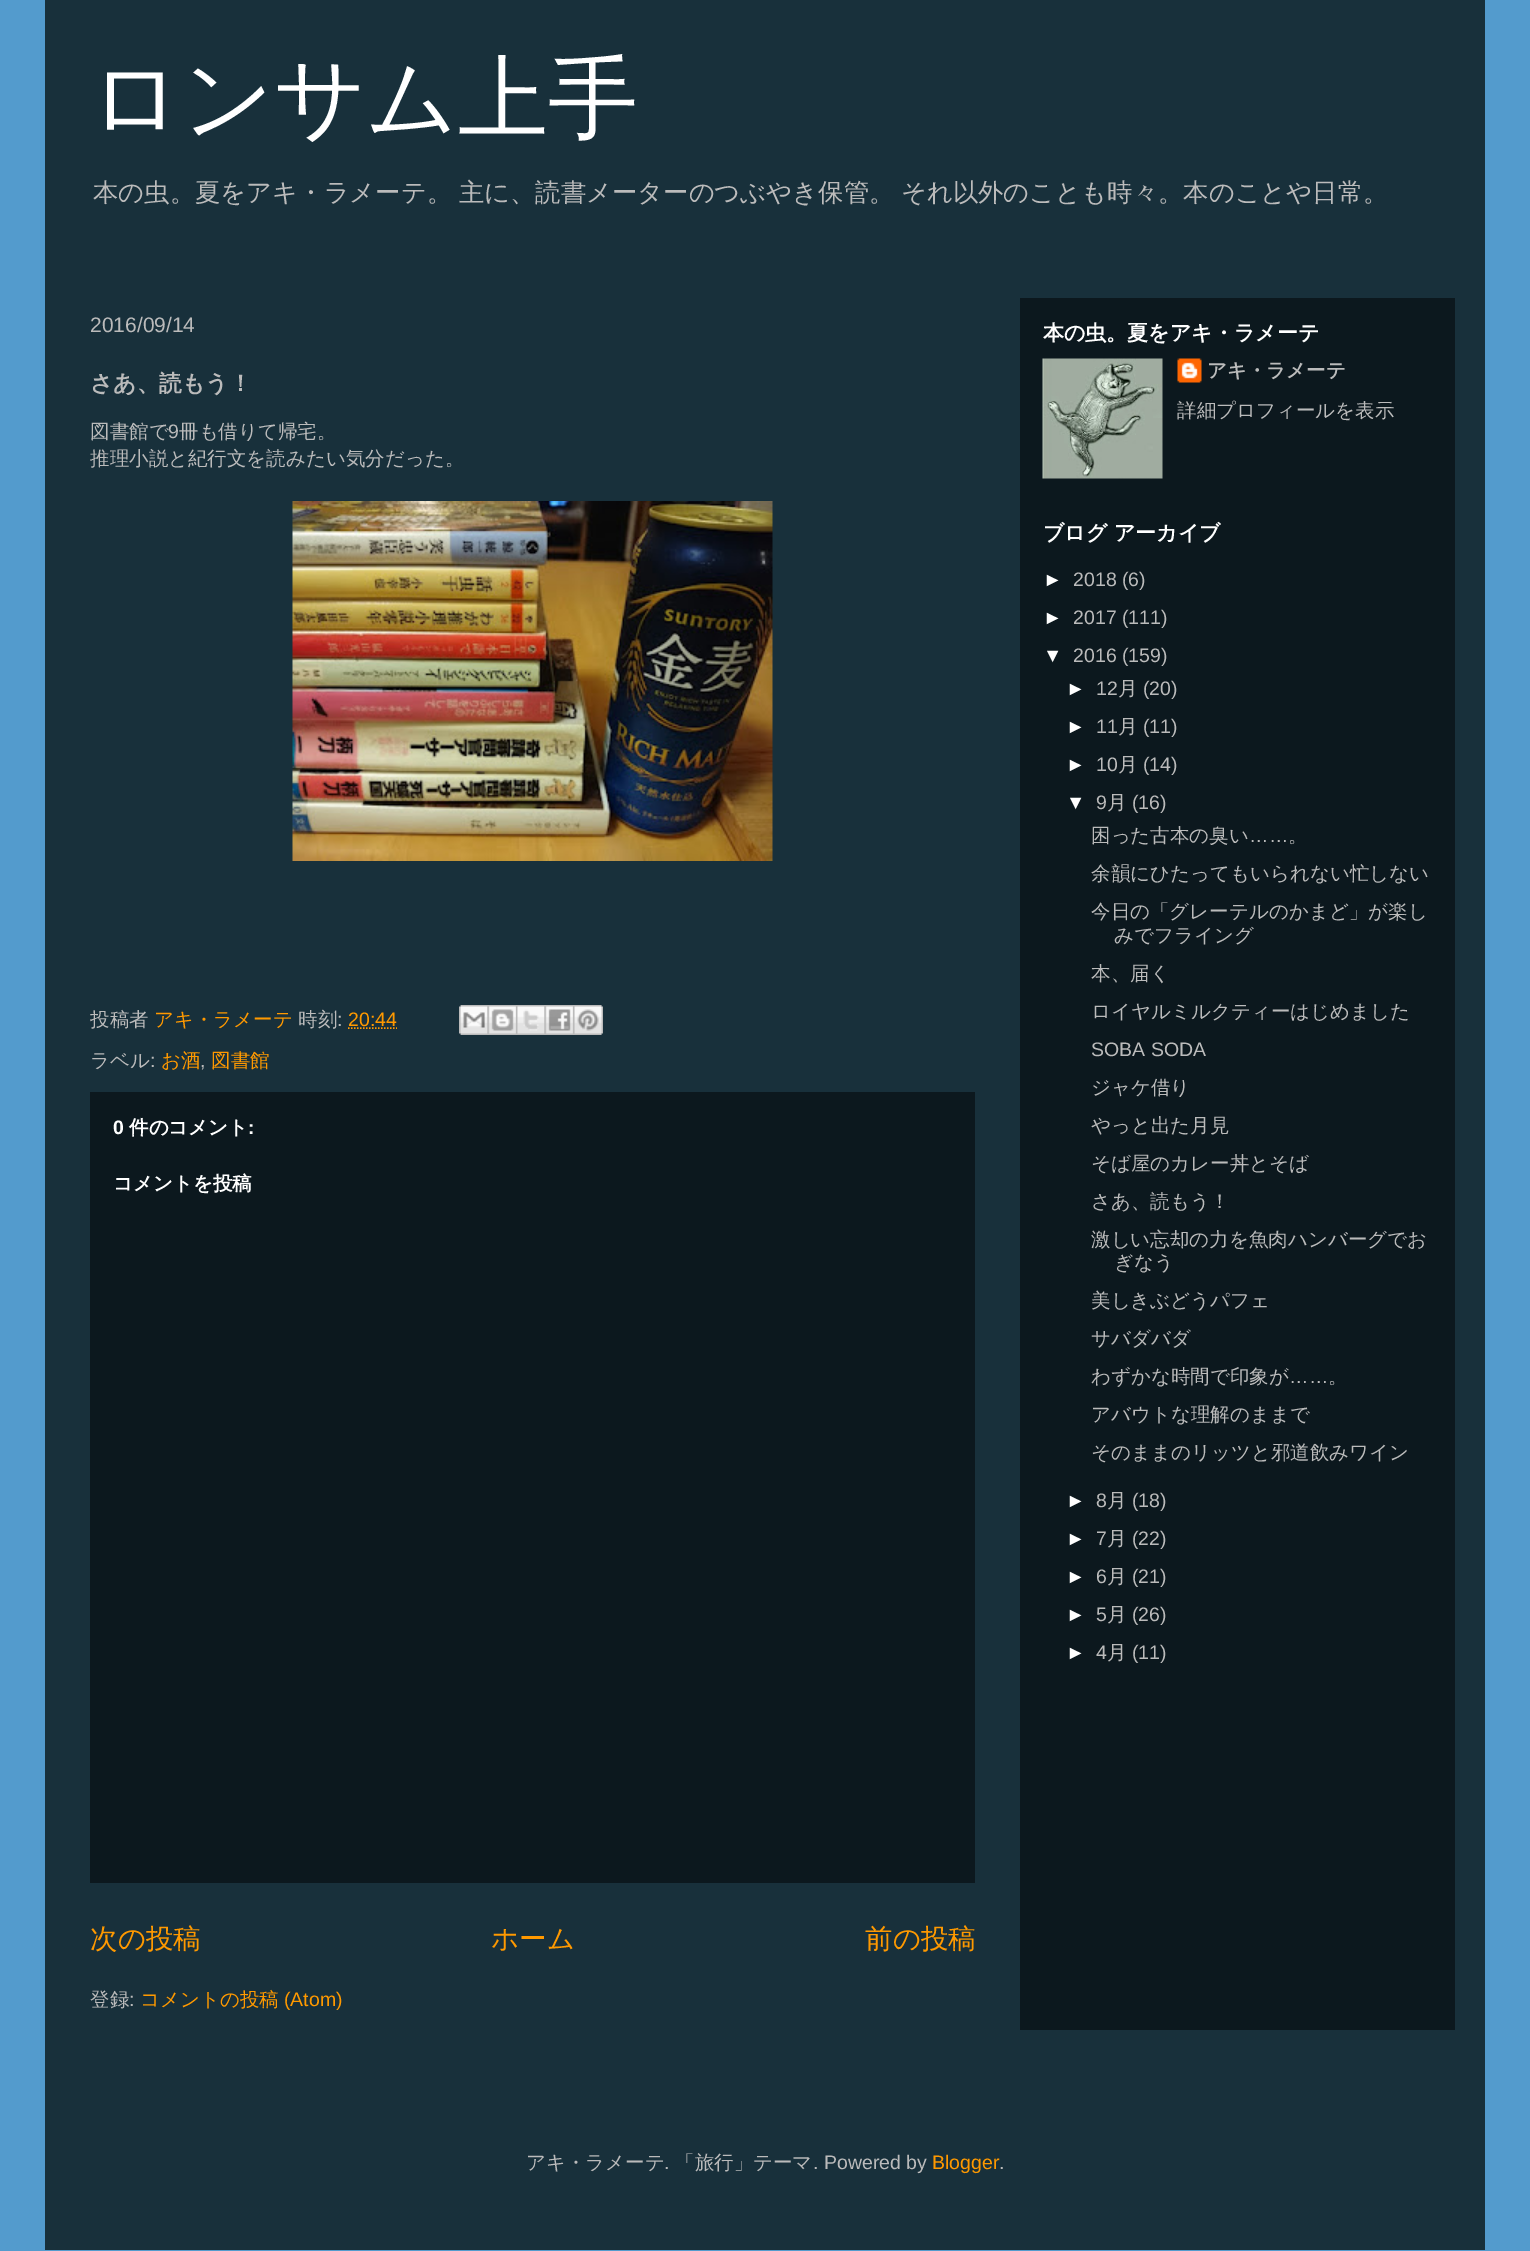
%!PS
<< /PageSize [1530 2251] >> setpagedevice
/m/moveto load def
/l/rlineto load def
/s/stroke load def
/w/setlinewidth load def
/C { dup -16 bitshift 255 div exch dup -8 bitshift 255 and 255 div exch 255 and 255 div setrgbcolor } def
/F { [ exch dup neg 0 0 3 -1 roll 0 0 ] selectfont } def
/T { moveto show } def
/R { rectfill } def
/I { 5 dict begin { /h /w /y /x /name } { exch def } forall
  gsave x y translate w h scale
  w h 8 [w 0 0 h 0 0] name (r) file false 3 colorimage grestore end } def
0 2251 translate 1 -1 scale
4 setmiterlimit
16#539BCD C
0 0 1530 2251 R
16#18303B C
45 0 1440 2250 R
/WenQuanYiZenHei-Medium 90 F
16#FFFFFF C
(ロンサム上手) 90 129 T
/WenQuanYiZenHei-Medium 25.35 F
16#BBBBBB C
93 201 m -1 0 32 (本の虫。夏をアキ・ラメーテ。 主に、読書メーターのつぶやき保管。 それ以外のことも時々。本のことや日常。) widthshow
16#0C181E C
1020 298 435 1732 R
/LiberationSans-Regular 21 F
16#BBBBBB C
(2016/09/14) 90 332 T
/WenQuanYiZenHei-Bold 22.75 F
(さあ、読もう！) 90 391 T
/WenQuanYiZenHei-Medium 19.5 F
(図書館で) 90 438 T
/LiberationSans-Regular 19.5 F
(9) 168 438 T
/WenQuanYiZenHei-Medium 19.5 F
(冊も借りて帰宅。) 179 438 T
(推理小説と紀行文を読みたい気分だった。) 90 465 T
(1.rgb) 292 501 481 360 I
(投稿者) 90 1026 T
16#FF9900 C
(アキ・ラメーテ) 154 1026 T
16#BBBBBB C
(時刻) 298 1026 T
/LiberationSans-Regular 19.5 F
(:) 337 1026 T
16#FF9900 C
(20:44) 348 1026 T
1.5 w
[1.5 1.5] 0 setdash
348 1028 m 49 0 l s
(2.rgb) 459 1005 29 30 I
(3.rgb) 487 1005 29 30 I
(4.rgb) 516 1005 29 30 I
(5.rgb) 544 1005 29 30 I
(6.rgb) 573 1005 30 30 I
/WenQuanYiZenHei-Medium 19.5 F
16#BBBBBB C
(ラベル) 90 1067 T
/LiberationSans-Regular 19.5 F
(:) 150 1067 T
/WenQuanYiZenHei-Medium 19.5 F
16#FF9900 C
(お酒) 161 1067 T
/LiberationSans-Regular 19.5 F
16#BBBBBB C
(,) 200 1067 T
/WenQuanYiZenHei-Medium 19.5 F
16#FF9900 C
(図書館) 211 1067 T
16#0C181E C
90 1092 885 791 R
/LiberationSans-Bold 19.5 F
16#FFFFFF C
(0) 113 1134 T
/WenQuanYiZenHei-Bold 19.5 F
(件のコメント) 129 1134 T
/LiberationSans-Bold 19.5 F
(:) 248 1134 T
/WenQuanYiZenHei-Bold 19.5 F
(コメントを投稿) 113 1190 T
/WenQuanYiZenHei-Medium 27.5 F
16#FF9900 C
(次の投稿) 90 1948 T
(ホーム) 491 1948 T
(前の投稿) 865 1948 T
/WenQuanYiZenHei-Medium 19.5 F
16#BBBBBB C
(登録) 90 2006 T
/LiberationSans-Regular 19.5 F
(:) 129 2006 T
/WenQuanYiZenHei-Medium 19.5 F
16#FF9900 C
(コメントの投稿) 140 2006 T
/LiberationSans-Regular 19.5 F
(\(Atom\)) 284 2006 T
/WenQuanYiZenHei-Bold 21 F
16#FFFFFF C
(本の虫。夏をアキ・ラメーテ) 1043 340 T
(7.rgb) 1042 358 121 121 I
(8.rgb) 1177 358 25 25 I
/WenQuanYiZenHei-Bold 19.5 F
16#BBBBBB C
(アキ・ラメーテ) 1207 377 T
/WenQuanYiZenHei-Medium 19.5 F
(詳細プロフィールを表示) 1177 417 T
/WenQuanYiZenHei-Bold 21 F
16#FFFFFF C
(ブログ アーカイブ) 1043 540 T
/LiberationSans-Regular 19.5 F
(►) 1043 586 T
16#BBBBBB C
(2018 \(6\)) 1073 586 T
16#FFFFFF C
(►) 1043 624 T
16#BBBBBB C
(2017 \(111\)) 1073 624 T
16#FFFFFF C
(▼) 1043 662 T
16#BBBBBB C
(2016 \(159\)) 1073 662 T
16#FFFFFF C
(►) 1066 695 T
16#BBBBBB C
(12) 1096 695 T
/WenQuanYiZenHei-Medium 19.5 F
(月) 1118 695 T
/LiberationSans-Regular 19.5 F
(\(20\)) 1143 695 T
16#FFFFFF C
(►) 1066 733 T
16#BBBBBB C
(11) 1096 733 T
/WenQuanYiZenHei-Medium 19.5 F
(月) 1118 733 T
/LiberationSans-Regular 19.5 F
(\(11\)) 1143 733 T
16#FFFFFF C
(►) 1066 771 T
16#BBBBBB C
(10) 1096 771 T
/WenQuanYiZenHei-Medium 19.5 F
(月) 1118 771 T
/LiberationSans-Regular 19.5 F
(\(14\)) 1143 771 T
16#FFFFFF C
(▼) 1066 809 T
16#BBBBBB C
(9) 1096 809 T
/WenQuanYiZenHei-Medium 19.5 F
(月) 1107 809 T
/LiberationSans-Regular 19.5 F
(\(16\)) 1132 809 T
/WenQuanYiZenHei-Medium 19.5 F
(困った古本の臭い) 1091 842 T
/LiberationSans-Regular 19.5 F
(……) 1249 842 T
/WenQuanYiZenHei-Medium 19.5 F
(。) 1288 842 T
(余韻にひたってもいられない忙しない) 1091 880 T
(今日の「グレーテルのかまど」が楽し) 1091 918 T
(みでフライング) 1114 942 T
(本、届く) 1091 980 T
(ロイヤルミルクティーはじめました) 1091 1018 T
/LiberationSans-Regular 19.5 F
(SOBA SODA) 1091 1056 T
/WenQuanYiZenHei-Medium 19.5 F
(ジャケ借り) 1091 1094 T
(やっと出た月見) 1091 1132 T
(そば屋のカレー丼とそば) 1091 1170 T
(さあ、読もう！) 1091 1208 T
(激しい忘却の力を魚肉ハンバーグでお) 1091 1246 T
(ぎなう) 1114 1269 T
(美しきぶどうパフェ) 1091 1307 T
(サバダバダ) 1091 1345 T
(わずかな時間で印象が) 1091 1383 T
/LiberationSans-Regular 19.5 F
(……) 1289 1383 T
/WenQuanYiZenHei-Medium 19.5 F
(。) 1328 1383 T
(アバウトな理解のままで) 1091 1421 T
(そのままのリッツと邪道飲みワイン) 1091 1459 T
/LiberationSans-Regular 19.5 F
16#FFFFFF C
(►) 1066 1507 T
16#BBBBBB C
(8) 1096 1507 T
/WenQuanYiZenHei-Medium 19.5 F
(月) 1107 1507 T
/LiberationSans-Regular 19.5 F
(\(18\)) 1132 1507 T
16#FFFFFF C
(►) 1066 1545 T
16#BBBBBB C
(7) 1096 1545 T
/WenQuanYiZenHei-Medium 19.5 F
(月) 1107 1545 T
/LiberationSans-Regular 19.5 F
(\(22\)) 1132 1545 T
16#FFFFFF C
(►) 1066 1583 T
16#BBBBBB C
(6) 1096 1583 T
/WenQuanYiZenHei-Medium 19.5 F
(月) 1107 1583 T
/LiberationSans-Regular 19.5 F
(\(21\)) 1132 1583 T
16#FFFFFF C
(►) 1066 1621 T
16#BBBBBB C
(5) 1096 1621 T
/WenQuanYiZenHei-Medium 19.5 F
(月) 1107 1621 T
/LiberationSans-Regular 19.5 F
(\(26\)) 1132 1621 T
16#FFFFFF C
(►) 1066 1659 T
16#BBBBBB C
(4) 1096 1659 T
/WenQuanYiZenHei-Medium 19.5 F
(月) 1107 1659 T
/LiberationSans-Regular 19.5 F
(\(11\)) 1132 1659 T
/WenQuanYiZenHei-Medium 19.5 F
(アキ・ラメーテ) 526 2169 T
/LiberationSans-Regular 19.5 F
(.) 664 2169 T
/WenQuanYiZenHei-Medium 19.5 F
(「旅行」テーマ) 675 2169 T
/LiberationSans-Regular 19.5 F
(. Powered by) 813 2169 T
16#FF9900 C
(Blogger) 932 2169 T
16#BBBBBB C
(.) 999 2169 T
showpage
